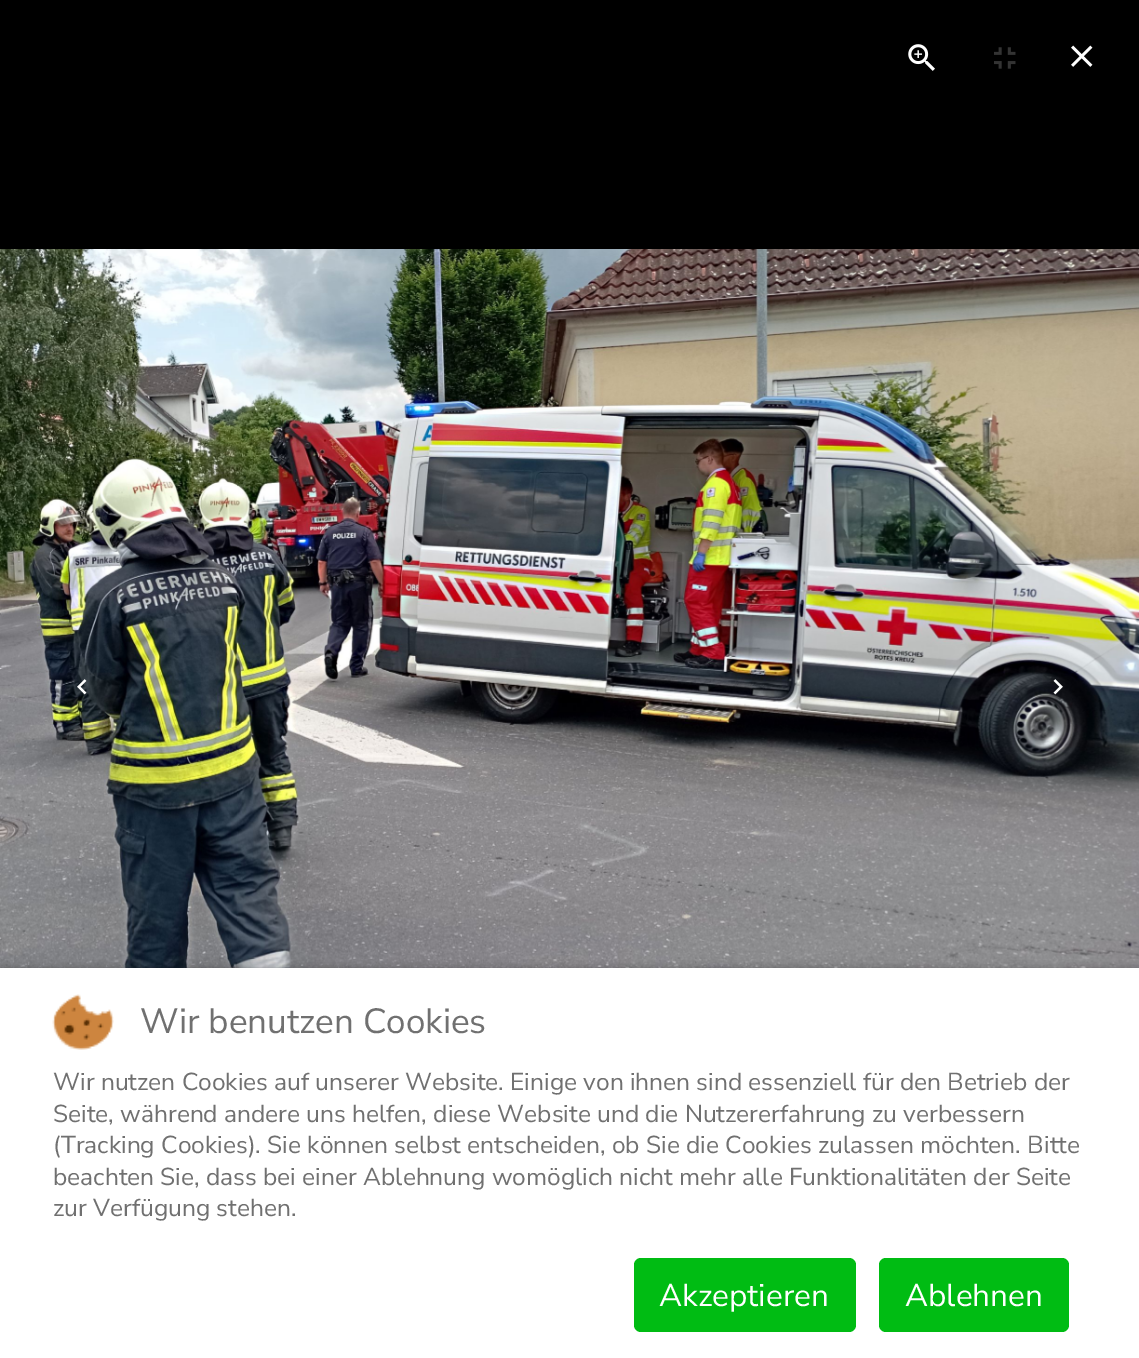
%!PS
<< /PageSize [1139 1358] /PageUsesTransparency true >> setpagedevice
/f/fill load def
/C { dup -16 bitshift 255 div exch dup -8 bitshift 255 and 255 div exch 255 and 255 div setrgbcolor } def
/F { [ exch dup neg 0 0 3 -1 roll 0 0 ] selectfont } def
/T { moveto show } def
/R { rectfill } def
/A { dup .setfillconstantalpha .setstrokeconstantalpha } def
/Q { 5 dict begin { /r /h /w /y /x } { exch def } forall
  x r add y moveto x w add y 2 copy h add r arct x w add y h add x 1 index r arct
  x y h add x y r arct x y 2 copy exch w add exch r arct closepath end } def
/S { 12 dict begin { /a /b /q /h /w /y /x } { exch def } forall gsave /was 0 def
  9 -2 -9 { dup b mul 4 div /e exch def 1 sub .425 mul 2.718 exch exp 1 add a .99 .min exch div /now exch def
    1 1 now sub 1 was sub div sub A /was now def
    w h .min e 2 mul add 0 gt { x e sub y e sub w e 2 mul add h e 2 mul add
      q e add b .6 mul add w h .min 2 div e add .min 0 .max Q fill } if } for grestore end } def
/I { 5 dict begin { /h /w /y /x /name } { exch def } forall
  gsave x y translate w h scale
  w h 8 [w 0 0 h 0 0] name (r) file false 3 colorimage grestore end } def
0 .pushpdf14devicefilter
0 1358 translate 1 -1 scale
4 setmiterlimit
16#000000 C
0 0 1139 1358 R
(1.rgb) 908 44 27 27 I
(2.rgb) 994 47 22 22 I
(3.rgb) 1071 45 22 22 I
(4.rgb) 0 249 1139 719 I
(5.rgb) 77 679 10 16 I
(6.rgb) 1053 679 10 16 I
0 968 1139 390 0 4.5 .25 S
16#FFFFFF C
0 968 1139 390 R
(7.rgb) 52 994 62 56 I
/NunitoSans-Regular 35 F
16#707070 C
(Wir benutzen Cookies) 140 1033 T
/NunitoSans-Regular 24.5 F
(Wir nutzen Cookies auf unserer Website. Einige von ihnen sind essenziell für den Betrieb der) 53 1090 T
(Seite, während andere uns helfen, diese Website und die Nutzererfahrung zu verbessern) 53 1122 T
(\(Tracking Cookies\). Sie können selbst entscheiden, ob Sie die Cookies zulassen möchten. Bitte) 53 1153 T
(beachten Sie, dass bei einer Ablehnung womöglich nicht mehr alle Funktionalitäten der Seite) 53 1185 T
(zur Verfügung stehen.) 53 1216 T
16#00BC13 C
634 1258 222 74 7 Q f
/NunitoSans-Regular 31.5 F
16#FFFFFF C
(Akzeptieren) 659 1306 T
16#00BC13 C
879 1258 190 74 7 Q f
16#FFFFFF C
(Ablehnen) 905 1306 T
.poppdf14devicefilter showpage
